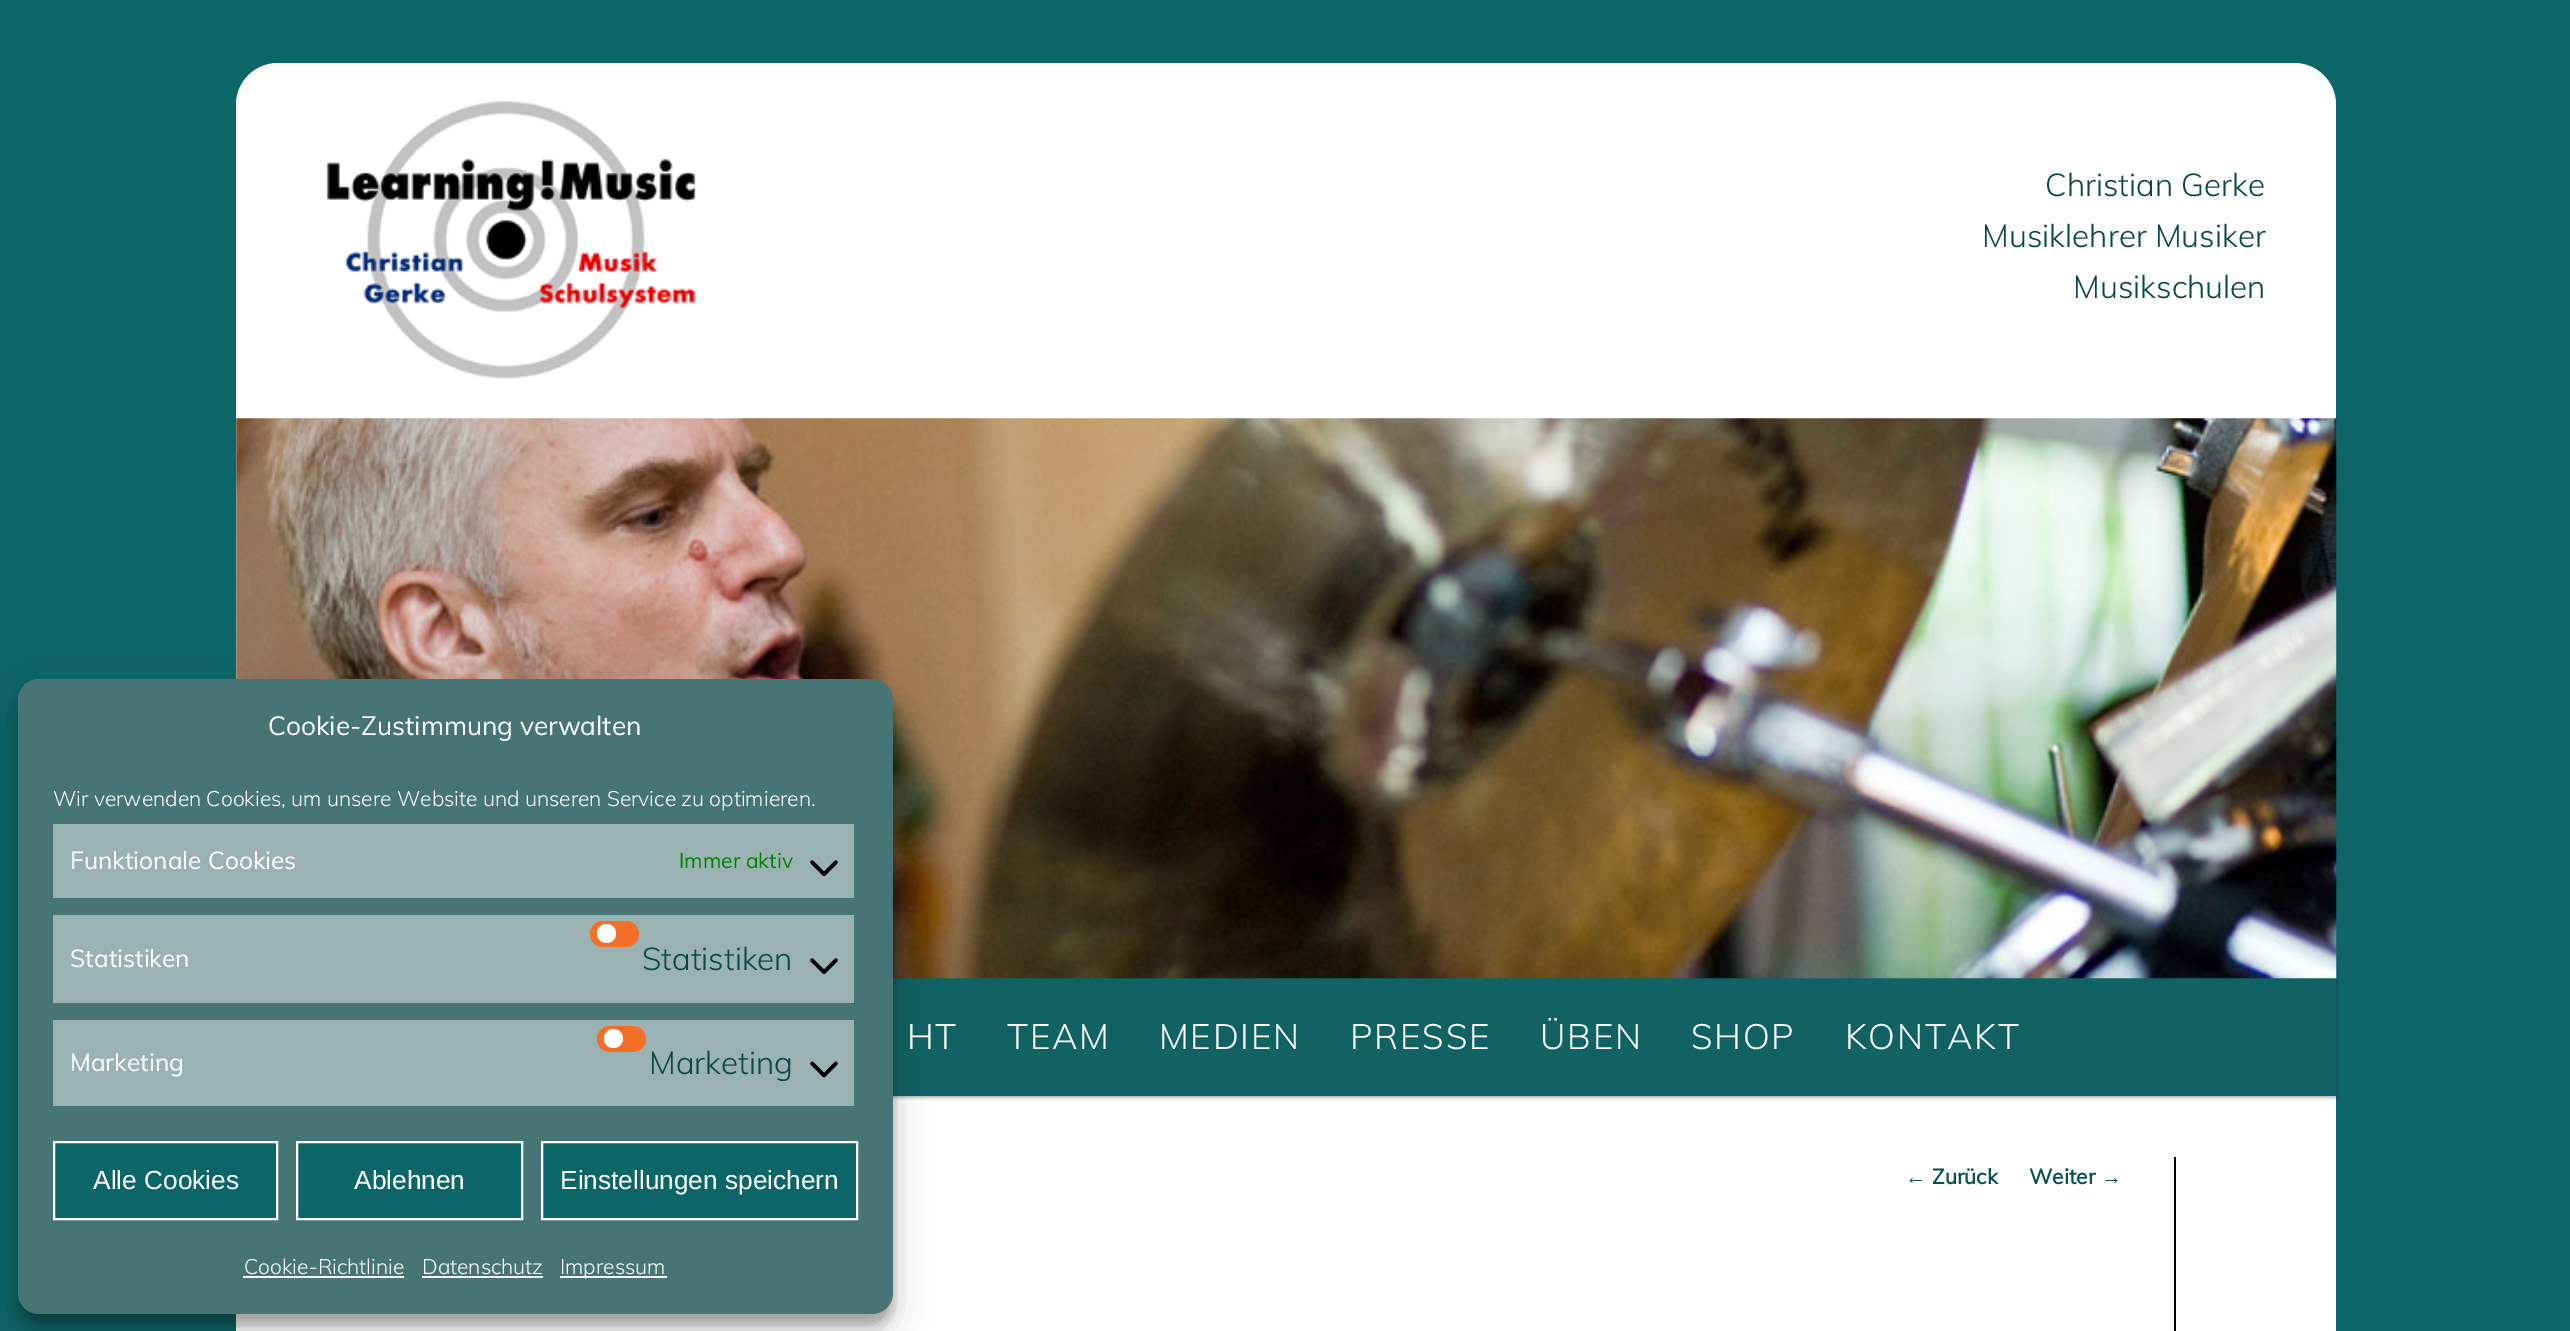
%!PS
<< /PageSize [2570 1331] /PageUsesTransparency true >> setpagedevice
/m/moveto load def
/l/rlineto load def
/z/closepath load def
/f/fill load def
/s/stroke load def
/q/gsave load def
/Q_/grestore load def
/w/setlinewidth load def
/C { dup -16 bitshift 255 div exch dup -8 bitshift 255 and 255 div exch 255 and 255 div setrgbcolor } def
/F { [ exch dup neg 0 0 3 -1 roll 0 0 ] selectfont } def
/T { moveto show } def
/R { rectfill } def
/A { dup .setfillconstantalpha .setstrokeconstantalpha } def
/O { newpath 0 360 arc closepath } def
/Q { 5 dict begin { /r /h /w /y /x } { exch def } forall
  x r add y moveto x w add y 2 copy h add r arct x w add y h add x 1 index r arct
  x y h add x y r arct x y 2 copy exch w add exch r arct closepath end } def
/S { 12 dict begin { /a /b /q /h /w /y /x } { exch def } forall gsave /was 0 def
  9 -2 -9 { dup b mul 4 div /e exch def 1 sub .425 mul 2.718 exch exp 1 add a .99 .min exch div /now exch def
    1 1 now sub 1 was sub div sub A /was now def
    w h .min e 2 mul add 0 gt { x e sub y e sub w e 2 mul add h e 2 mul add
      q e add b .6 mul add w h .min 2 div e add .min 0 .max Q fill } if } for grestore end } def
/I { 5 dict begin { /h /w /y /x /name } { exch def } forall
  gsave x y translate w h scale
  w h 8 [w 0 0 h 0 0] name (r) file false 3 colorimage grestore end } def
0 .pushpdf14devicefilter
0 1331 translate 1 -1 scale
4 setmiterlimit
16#0C6566 C
0 0 2570 1331 R
16#FFFFFF C
236 63 2100 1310 42 Q f
16#000000 C
236 980 2100 117 0 2 .4 S
16#106263 C
893 978 1443 118 R
(4.rgb) 236 418 2101 561 I
16#000000 C
18 690 875 635 21 5 .23 S
18 697 875 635 21 17.5 .19 S
16#477475 C
18 679 875 635 21 Q f
/Muli-Regular 26.25 F
16#FFFFFF C
(Cookie-Zustimmung verwalten) 268 735 T
/Muli-Light 21 F
(Wir verwenden Cookies, um unsere Website und unseren Service zu optimieren.) 53 806 T
16#9BB2B2 C
53 824 801 74 R
/Muli-Regular 24.5 F
16#FFFFFF C
(Funktionale Cookies) 70 869 T
/Muli-Regular 21 F
16#008000 C
(Immer aktiv) 679 868 T
(1.rgb) 810 860 28 17 I
16#9BB2B2 C
53 915 801 88 R
/Muli-Regular 24.5 F
16#FFFFFF C
(Statistiken) 70 967 T
16#F56E28 C
590 921 49 26 13 Q f
16#FFFFFF C
606.5 933.5 9.5 O f
/Muli-Light 31.5 F
16#094747 C
(Statistiken) 642 970 T
(1.rgb) 810 958 28 17 I
16#9BB2B2 C
53 1020 801 86 R
/Muli-Regular 24.5 F
16#FFFFFF C
(Marketing) 70 1071 T
16#F56E28 C
597 1026 49 26 13 Q f
16#FFFFFF C
613.5 1038.5 9.5 O f
/Muli-Light 31.5 F
16#094747 C
(Marketing) 649 1074 T
(2.rgb) 810 1061 28 17 I
16#0C6566 C
54 1142 m 223 0 l 0 77 l -223 0 l z q f Q_
16#FFFFFF C
2 w
s
/LiberationSans-Regular 26.25 F
(Alle Cookies) 93 1189 T
16#0C6566 C
297 1142 m 225 0 l 0 77 l -225 0 l z q f Q_
16#FFFFFF C
s
(Ablehnen) 354 1189 T
16#0C6566 C
542 1142 m 315 0 l 0 77 l -315 0 l z q f Q_
16#FFFFFF C
s
(Einstellungen speichern) 560 1189 T
/Muli-Light 21 F
(Cookie-Richtlinie) 244 1274 T
243 1276 161 2 R
(Datenschutz) 422 1274 T
422 1276 121 2 R
560 1276 107 2 R
(Impressum) 560 1274 T
(3.rgb) 326 101 371 278 I
/Muli-Light 31.5 F
16#094747 C
(Christian Gerke) 2045 196 T
(Musiklehrer Musiker) 1982 247 T
(Musikschulen) 2073 298 T
/Muli-Light 35 F
16#FFFFFF C
907 1049 m 1.75 0 (HT) ashow
1007 1049 m 1.75 0 (TEAM) ashow
1159 1049 m 1.75 0 (MEDIEN) ashow
1350 1049 m 1.75 0 (PRESSE) ashow
1540 1049 m 1.75 0 (ÜBEN) ashow
1691 1049 m 1.75 0 (SHOP) ashow
1845 1049 m 1.75 0 (KONTAKT) ashow
16#000000 C
2174 1157 2 174 R
/LiberationSans-Regular 21 F
16#0A5252 C
(←) 1905 1184 T
/Muli-Bold 21 F
(Zurück) 1932 1184 T
(Weiter) 2029 1184 T
/LiberationSans-Regular 21 F
(→) 2101 1184 T
.poppdf14devicefilter showpage
